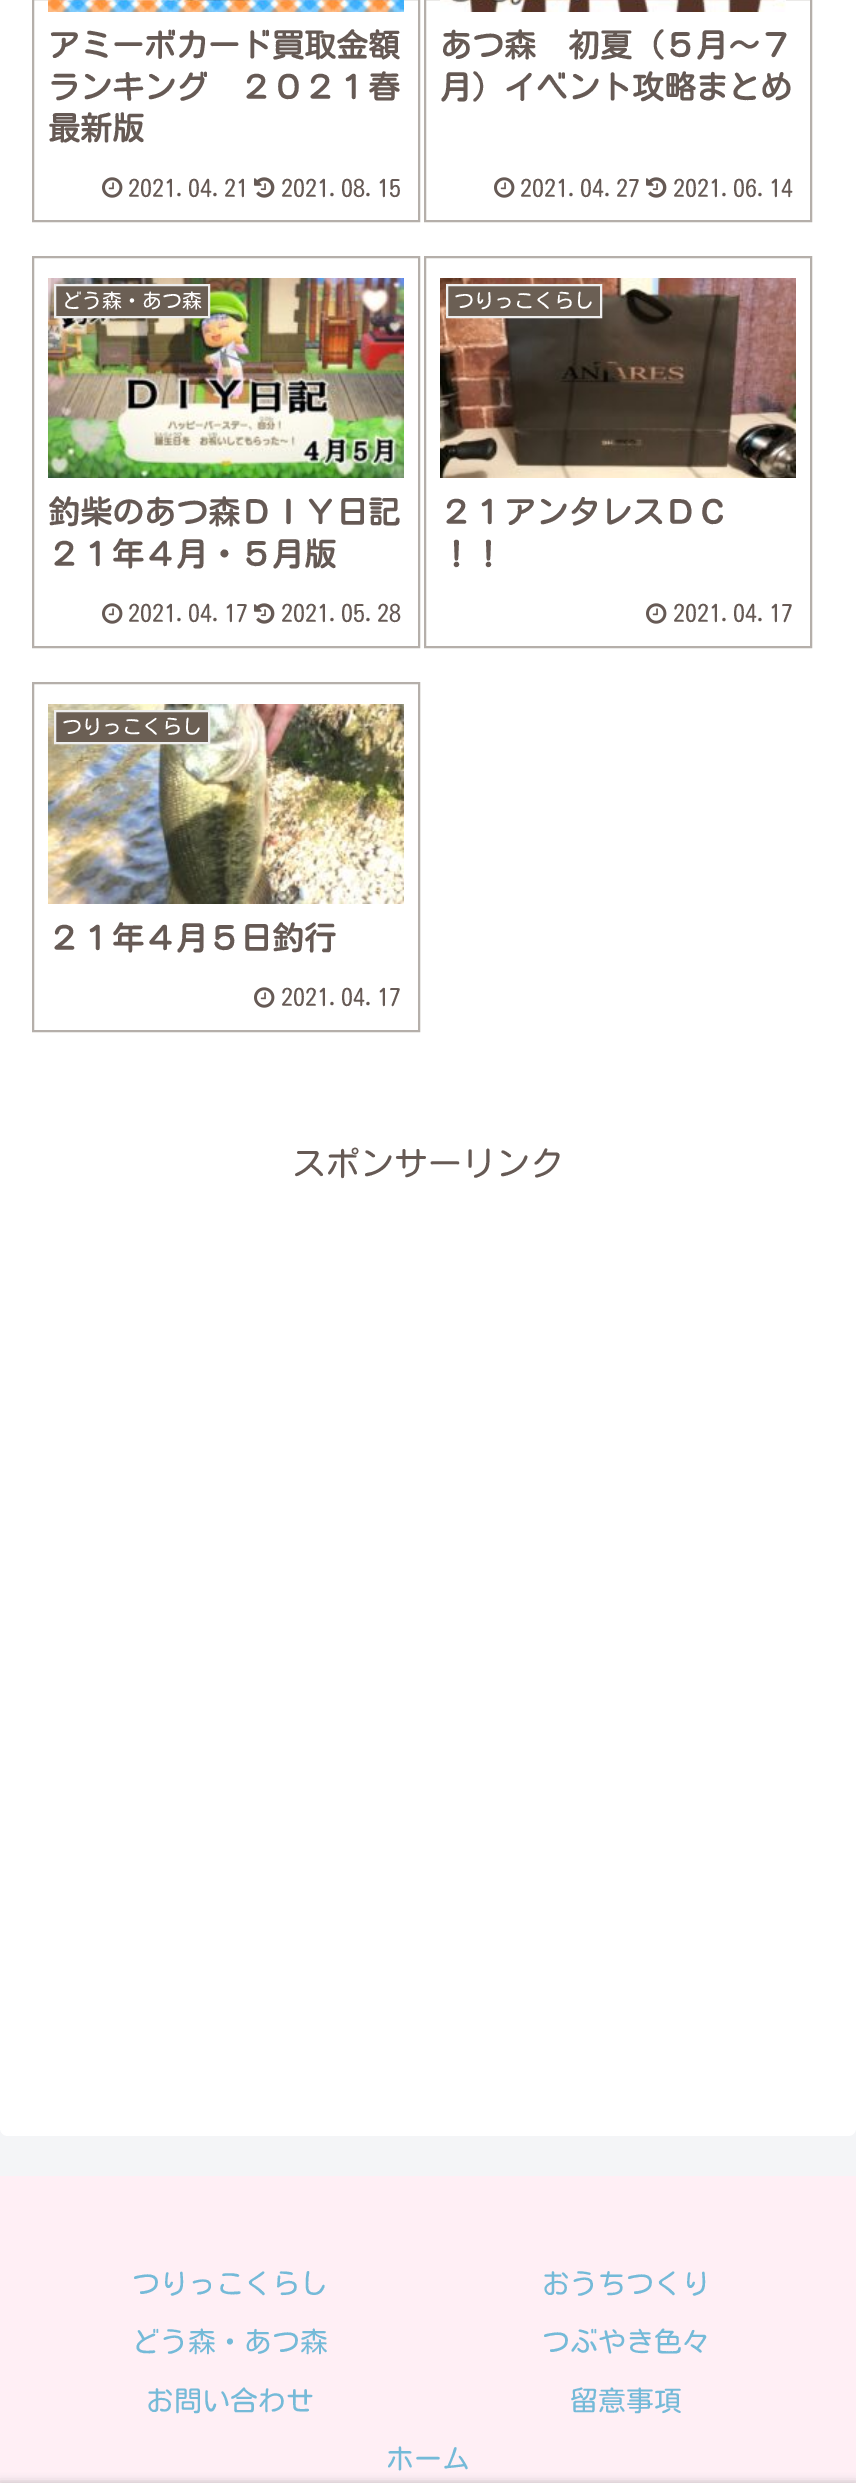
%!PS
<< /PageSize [856 2483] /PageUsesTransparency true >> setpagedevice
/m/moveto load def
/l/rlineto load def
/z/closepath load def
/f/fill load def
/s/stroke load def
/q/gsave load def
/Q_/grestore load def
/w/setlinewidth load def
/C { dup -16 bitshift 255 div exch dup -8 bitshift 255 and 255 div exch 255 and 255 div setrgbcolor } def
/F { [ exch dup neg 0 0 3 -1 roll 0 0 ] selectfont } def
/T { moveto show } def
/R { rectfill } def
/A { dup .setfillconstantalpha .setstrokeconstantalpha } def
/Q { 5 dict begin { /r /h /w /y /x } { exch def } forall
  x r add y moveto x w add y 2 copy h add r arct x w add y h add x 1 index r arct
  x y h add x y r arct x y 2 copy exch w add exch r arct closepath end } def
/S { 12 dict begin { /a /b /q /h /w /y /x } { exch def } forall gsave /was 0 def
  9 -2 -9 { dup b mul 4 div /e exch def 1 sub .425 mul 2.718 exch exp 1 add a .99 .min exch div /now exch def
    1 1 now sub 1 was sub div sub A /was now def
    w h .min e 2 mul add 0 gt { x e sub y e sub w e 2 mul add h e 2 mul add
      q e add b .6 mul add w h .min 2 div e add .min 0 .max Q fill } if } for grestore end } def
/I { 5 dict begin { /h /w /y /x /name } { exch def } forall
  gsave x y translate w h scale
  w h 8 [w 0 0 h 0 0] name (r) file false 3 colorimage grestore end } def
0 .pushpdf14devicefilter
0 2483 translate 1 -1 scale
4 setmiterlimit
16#F4F5F7 C
0 0 856 2483 R
16#FFFFFF C
0 -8 856 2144 8 Q f
16#B5AFAA C
2 w
33 -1 386 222 rectstroke
(1.rgb) 48 0 356 12 I
/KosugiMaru-Bold 32 F
16#665A55 C
(アミーボカード買取金額) 48 57 T
(ランキング　２０２１春) 48 99 T
(最新版) 48 140 T
(2.rgb) 102 177 21 21 I
/KosugiMaru-Regular 24 F
(2021.04.21) 128 197 T
(3.rgb) 254 177 21 21 I
(2021.08.15) 281 197 T
16#B5AFAA C
425 -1 386 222 rectstroke
(4.rgb) 440 0 346 12 I
/KosugiMaru-Bold 32 F
16#665A55 C
(あつ森　初夏（５月～７) 440 57 T
(月）イベント攻略まとめ) 440 99 T
(2.rgb) 494 177 21 21 I
/KosugiMaru-Regular 24 F
(2021.04.27) 520 197 T
(3.rgb) 646 177 21 21 I
(2021.06.14) 673 197 T
16#B5AFAA C
33 257 386 390 rectstroke
(5.rgb) 48 278 356 200 I
16#6B5F54 C
55 285 m 154 0 l 0 32 l -154 0 l z q f Q_
16#EEEEEE C
s
/KosugiMaru-Regular 20 F
16#FFFFFF C
(どう森・あつ森) 62 308 T
/KosugiMaru-Bold 32 F
16#665A55 C
(釣柴のあつ森ＤＩＹ日記) 48 524 T
(２１年４月・５月版) 48 566 T
(2.rgb) 102 603 21 21 I
/KosugiMaru-Regular 24 F
(2021.04.17) 128 622 T
(3.rgb) 254 603 21 21 I
(2021.05.28) 281 622 T
16#B5AFAA C
425 257 386 390 rectstroke
(6.rgb) 440 278 356 200 I
16#6B5F54 C
447 285 m 154 0 l 0 32 l -154 0 l z q f Q_
16#EEEEEE C
s
/KosugiMaru-Regular 20 F
16#FFFFFF C
(つりっこくらし) 454 308 T
/KosugiMaru-Bold 32 F
16#665A55 C
(２１アンタレスＤＣ) 440 524 T
(！！) 440 566 T
(2.rgb) 646 603 21 21 I
/KosugiMaru-Regular 24 F
(2021.04.17) 673 622 T
16#B5AFAA C
33 683 386 348 rectstroke
(7.rgb) 48 704 356 200 I
16#6B5F54 C
55 711 m 154 0 l 0 32 l -154 0 l z q f Q_
16#EEEEEE C
s
/KosugiMaru-Regular 20 F
16#FFFFFF C
(つりっこくらし) 62 734 T
/KosugiMaru-Bold 32 F
16#665A55 C
(２１年４月５日釣行) 48 950 T
(2.rgb) 254 987 21 21 I
/KosugiMaru-Regular 24 F
(2021.04.17) 281 1006 T
/KosugiMaru-Regular 34 F
(スポンサーリンク) 292 1176 T
16#FFEFF5 C
0 2176 856 307 R
/KosugiMaru-Regular 28 F
16#75BAD8 C
(つりっこくらし) 132 2294 T
(おうちつくり) 542 2294 T
(どう森・あつ森) 132 2352 T
(つぶやき色々) 542 2352 T
(お問い合わせ) 146 2411 T
(留意事項) 570 2411 T
(ホーム) 386 2469 T
16#A9A9A9 C
0 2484 856 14 0 5 1 S
.poppdf14devicefilter showpage
